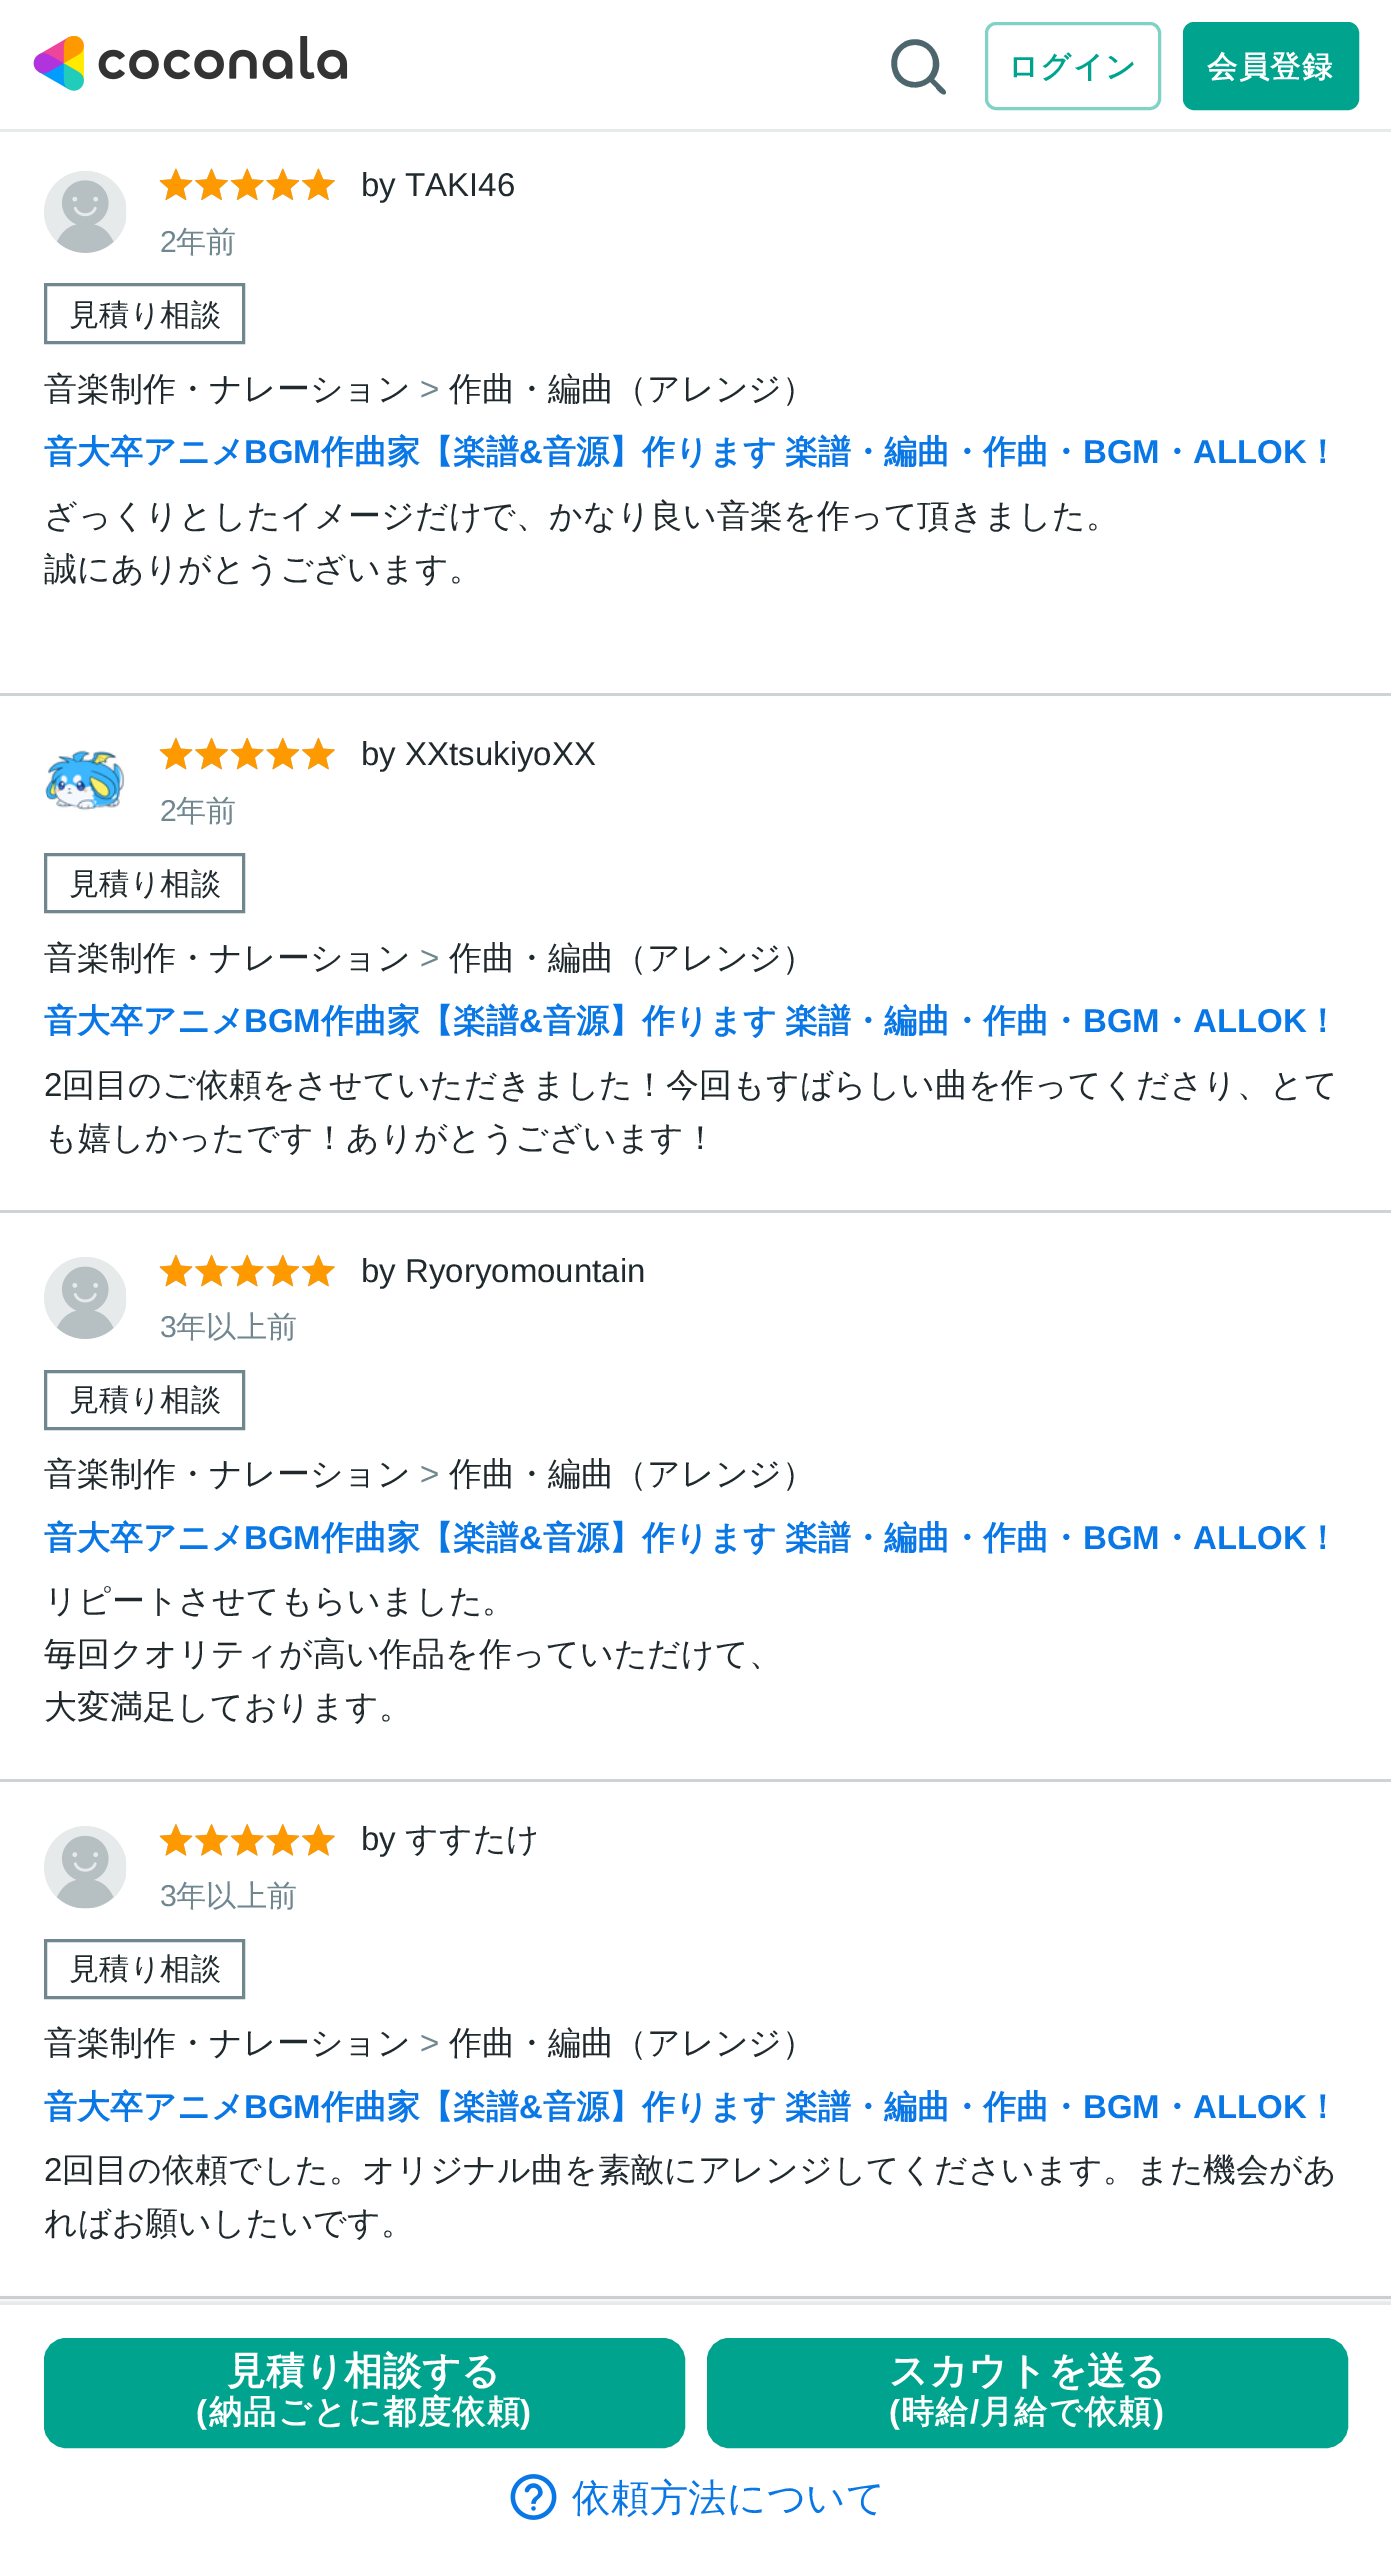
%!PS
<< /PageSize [1391 2567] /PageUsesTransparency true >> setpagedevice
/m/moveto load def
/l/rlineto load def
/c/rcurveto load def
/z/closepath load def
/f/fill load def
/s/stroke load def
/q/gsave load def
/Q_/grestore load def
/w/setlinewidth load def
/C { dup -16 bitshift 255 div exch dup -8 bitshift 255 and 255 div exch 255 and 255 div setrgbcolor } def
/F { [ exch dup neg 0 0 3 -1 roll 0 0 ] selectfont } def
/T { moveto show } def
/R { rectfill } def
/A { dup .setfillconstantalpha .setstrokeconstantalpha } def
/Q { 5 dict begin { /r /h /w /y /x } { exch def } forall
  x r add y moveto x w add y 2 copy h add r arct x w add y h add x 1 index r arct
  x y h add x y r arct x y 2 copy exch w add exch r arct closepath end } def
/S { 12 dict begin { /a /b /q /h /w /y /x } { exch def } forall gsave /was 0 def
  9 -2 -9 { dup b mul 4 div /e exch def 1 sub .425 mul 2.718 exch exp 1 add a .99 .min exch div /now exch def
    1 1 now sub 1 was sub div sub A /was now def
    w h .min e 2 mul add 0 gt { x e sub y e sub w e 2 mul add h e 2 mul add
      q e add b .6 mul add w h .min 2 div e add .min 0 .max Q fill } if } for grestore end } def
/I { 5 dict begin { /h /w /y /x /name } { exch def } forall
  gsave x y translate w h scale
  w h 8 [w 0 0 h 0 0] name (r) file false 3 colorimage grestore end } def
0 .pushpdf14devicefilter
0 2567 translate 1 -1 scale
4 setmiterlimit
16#FFFFFF C
0 0 1391 2567 R
16#E7EAEB C
0 129 1391 3 R
(1.rgb) 33 36 315 55 I
16#4D656D C
945 90 m -11 -11 l 15 -19 -5 -47 -28 -38 c -6 3 -11 8 -13 13 c -3 8 -2 16 2 23 c 8 12 24 14 35 5 c 6 6 l 0 1 9 11 10 4 c z 915 82 m -24 0 -24 -37 0 -37 c 24 0 24 37 0 37 c z f
16#80D1C6 C
3 w
986.5 23.5 173 85 9.5 Q s
/WenQuanYiZenHei-Bold 30.25 F
16#00A38D C
1008 77 m 1.4 0 (ログイン) ashow
1184.5 23.5 173 85 9.5 Q q f Q_
s
16#FFFFFF C
1207 77 m 1.4 0 (会員登録) ashow
16#CED4D6 C
0 693 1391 3 R
(2.rgb) 44 171 83 82 I
(3.rgb) 159 168 176 32 I
(4.rgb) 160 168 175 32 I
/LiberationSans-Regular 33 F
16#202A2E C
(by TAKI46) 361 196 T
/LiberationSans-Regular 30.25 F
16#718790 C
(2) 160 252 T
/WenQuanYiZenHei-Medium 30.25 F
(年前) 176 252 T
45.5 284.5 198 58 rectstroke
16#202A2E C
(見積り相談) 69 325 T
/WenQuanYiZenHei-Medium 33 F
(音楽制作・ナレーション) 44 400 T
/LiberationSans-Regular 33 F
16#718790 C
(>) 420 400 T
/WenQuanYiZenHei-Medium 33 F
16#202A2E C
(作曲・編曲（アレンジ）) 449 400 T
/WenQuanYiZenHei-Bold 33 F
16#0977E5 C
(音大卒アニメ) 44 463 T
/LiberationSans-Bold 33 F
(BGM) 244 463 T
/WenQuanYiZenHei-Bold 33 F
(作曲家【楽譜) 321 463 T
/LiberationSans-Bold 33 F
(&) 519 463 T
/WenQuanYiZenHei-Bold 33 F
543 463 m -1 0 32 (音源】作ります 楽譜・編曲・作曲・) widthshow
/LiberationSans-Bold 33 F
(BGM) 1083 463 T
/WenQuanYiZenHei-Bold 33 F
(・) 1160 463 T
/LiberationSans-Bold 33 F
(ALLOK) 1193 463 T
/WenQuanYiZenHei-Bold 33 F
(！) 1306 463 T
/WenQuanYiZenHei-Medium 33 F
16#202A2E C
(ざっくりとしたイメージだけで、かなり良い音楽を作って頂きました。) 44 527 T
(誠にありがとうございます。) 44 580 T
16#CED4D6 C
0 1210 1391 3 R
(5.rgb) 45 750 80 61 I
(6.rgb) 159 737 176 33 I
(7.rgb) 160 737 175 33 I
/LiberationSans-Regular 33 F
16#202A2E C
(by XXtsukiyoXX) 361 765 T
/LiberationSans-Regular 30.25 F
16#718790 C
(2) 160 821 T
/WenQuanYiZenHei-Medium 30.25 F
(年前) 176 821 T
45.5 854.5 198 57 rectstroke
16#202A2E C
(見積り相談) 69 894 T
/WenQuanYiZenHei-Medium 33 F
(音楽制作・ナレーション) 44 969 T
/LiberationSans-Regular 33 F
16#718790 C
(>) 420 969 T
/WenQuanYiZenHei-Medium 33 F
16#202A2E C
(作曲・編曲（アレンジ）) 449 969 T
/WenQuanYiZenHei-Bold 33 F
16#0977E5 C
(音大卒アニメ) 44 1032 T
/LiberationSans-Bold 33 F
(BGM) 244 1032 T
/WenQuanYiZenHei-Bold 33 F
(作曲家【楽譜) 321 1032 T
/LiberationSans-Bold 33 F
(&) 519 1032 T
/WenQuanYiZenHei-Bold 33 F
543 1032 m -1 0 32 (音源】作ります 楽譜・編曲・作曲・) widthshow
/LiberationSans-Bold 33 F
(BGM) 1083 1032 T
/WenQuanYiZenHei-Bold 33 F
(・) 1160 1032 T
/LiberationSans-Bold 33 F
(ALLOK) 1193 1032 T
/WenQuanYiZenHei-Bold 33 F
(！) 1306 1032 T
/LiberationSans-Regular 33 F
16#202A2E C
(2) 44 1096 T
/WenQuanYiZenHei-Medium 33 F
(回目のご依頼をさせていただきました！今回もすばらしい曲を作ってくださり、とて) 62 1096 T
(も嬉しかったです！ありがとうございます！) 44 1149 T
16#CED4D6 C
0 1779 1391 3 R
(8.rgb) 44 1257 83 82 I
(6.rgb) 159 1254 176 33 I
(7.rgb) 160 1254 175 33 I
/LiberationSans-Regular 33 F
16#202A2E C
(by Ryoryomountain) 361 1282 T
/LiberationSans-Regular 30.25 F
16#718790 C
(3) 160 1337 T
/WenQuanYiZenHei-Medium 30.25 F
(年以上前) 176 1337 T
45.5 1371.5 198 57 rectstroke
16#202A2E C
(見積り相談) 69 1410 T
/WenQuanYiZenHei-Medium 33 F
(音楽制作・ナレーション) 44 1485 T
/LiberationSans-Regular 33 F
16#718790 C
(>) 420 1485 T
/WenQuanYiZenHei-Medium 33 F
16#202A2E C
(作曲・編曲（アレンジ）) 449 1485 T
/WenQuanYiZenHei-Bold 33 F
16#0977E5 C
(音大卒アニメ) 44 1549 T
/LiberationSans-Bold 33 F
(BGM) 244 1549 T
/WenQuanYiZenHei-Bold 33 F
(作曲家【楽譜) 321 1549 T
/LiberationSans-Bold 33 F
(&) 519 1549 T
/WenQuanYiZenHei-Bold 33 F
543 1549 m -1 0 32 (音源】作ります 楽譜・編曲・作曲・) widthshow
/LiberationSans-Bold 33 F
(BGM) 1083 1549 T
/WenQuanYiZenHei-Bold 33 F
(・) 1160 1549 T
/LiberationSans-Bold 33 F
(ALLOK) 1193 1549 T
/WenQuanYiZenHei-Bold 33 F
(！) 1306 1549 T
/WenQuanYiZenHei-Medium 33 F
16#202A2E C
(リピートさせてもらいました。) 44 1612 T
(毎回クオリティが高い作品を作っていただけて、) 44 1665 T
(大変満足しております。) 44 1718 T
16#CED4D6 C
0 2296 1391 3 R
(9.rgb) 44 1826 83 83 I
(10.rgb) 159 1824 176 32 I
(11.rgb) 160 1824 175 32 I
/LiberationSans-Regular 33 F
16#202A2E C
(by) 361 1850 T
/WenQuanYiZenHei-Medium 33 F
(すすたけ) 405 1850 T
/LiberationSans-Regular 30.25 F
16#718790 C
(3) 160 1906 T
/WenQuanYiZenHei-Medium 30.25 F
(年以上前) 176 1906 T
45.5 1940.5 198 57 rectstroke
16#202A2E C
(見積り相談) 69 1979 T
/WenQuanYiZenHei-Medium 33 F
(音楽制作・ナレーション) 44 2054 T
/LiberationSans-Regular 33 F
16#718790 C
(>) 420 2054 T
/WenQuanYiZenHei-Medium 33 F
16#202A2E C
(作曲・編曲（アレンジ）) 449 2054 T
/WenQuanYiZenHei-Bold 33 F
16#0977E5 C
(音大卒アニメ) 44 2118 T
/LiberationSans-Bold 33 F
(BGM) 244 2118 T
/WenQuanYiZenHei-Bold 33 F
(作曲家【楽譜) 321 2118 T
/LiberationSans-Bold 33 F
(&) 519 2118 T
/WenQuanYiZenHei-Bold 33 F
543 2118 m -1 0 32 (音源】作ります 楽譜・編曲・作曲・) widthshow
/LiberationSans-Bold 33 F
(BGM) 1083 2118 T
/WenQuanYiZenHei-Bold 33 F
(・) 1160 2118 T
/LiberationSans-Bold 33 F
(ALLOK) 1193 2118 T
/WenQuanYiZenHei-Bold 33 F
(！) 1306 2118 T
/LiberationSans-Regular 33 F
16#202A2E C
(2) 44 2181 T
/WenQuanYiZenHei-Medium 33 F
(回目の依頼でした。オリジナル曲を素敵にアレンジしてくださいます。また機会があ) 62 2181 T
(ればお願いしたいです。) 44 2234 T
16#000000 C
0 2305 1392 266 0 5.5 .2 S
16#FFFFFF C
0 2305 1391 262 R
16#E7EAEB C
0 2302 1391 3 R
16#00A38D C
45.5 2339.5 638 107 20.5 Q q f Q_
s
/WenQuanYiZenHei-Bold 38.5 F
16#FFFFFF C
227 2384 m .25 0 (見積り相談する) ashow
/LiberationSans-Bold 33 F
196 2423 m 1.4 0 (\() ashow
/WenQuanYiZenHei-Bold 33 F
209 2423 m 1.4 0 (納品ごとに都度依頼) ashow
/LiberationSans-Bold 33 F
520 2423 m 1.4 0 (\)) ashow
16#00A38D C
708.5 2339.5 638 107 20.5 Q q f Q_
s
/WenQuanYiZenHei-Bold 38.5 F
16#FFFFFF C
889 2384 m .25 0 (スカウトを送る) ashow
/LiberationSans-Bold 33 F
889 2423 m 1.4 0 (\() ashow
/WenQuanYiZenHei-Bold 33 F
901 2423 m 1.4 0 (時給) ashow
/LiberationSans-Bold 33 F
970 2423 m 1.4 0 (/) ashow
/WenQuanYiZenHei-Bold 33 F
980 2423 m 1.4 0 (月給で依頼) ashow
/LiberationSans-Bold 33 F
1153 2423 m 1.4 0 (\)) ashow
(12.rgb) 510 2474 47 46 I
/WenQuanYiZenHei-Medium 38.5 F
16#0977E5 C
572 2511 m .25 0 (依頼方法について) ashow
.poppdf14devicefilter showpage
